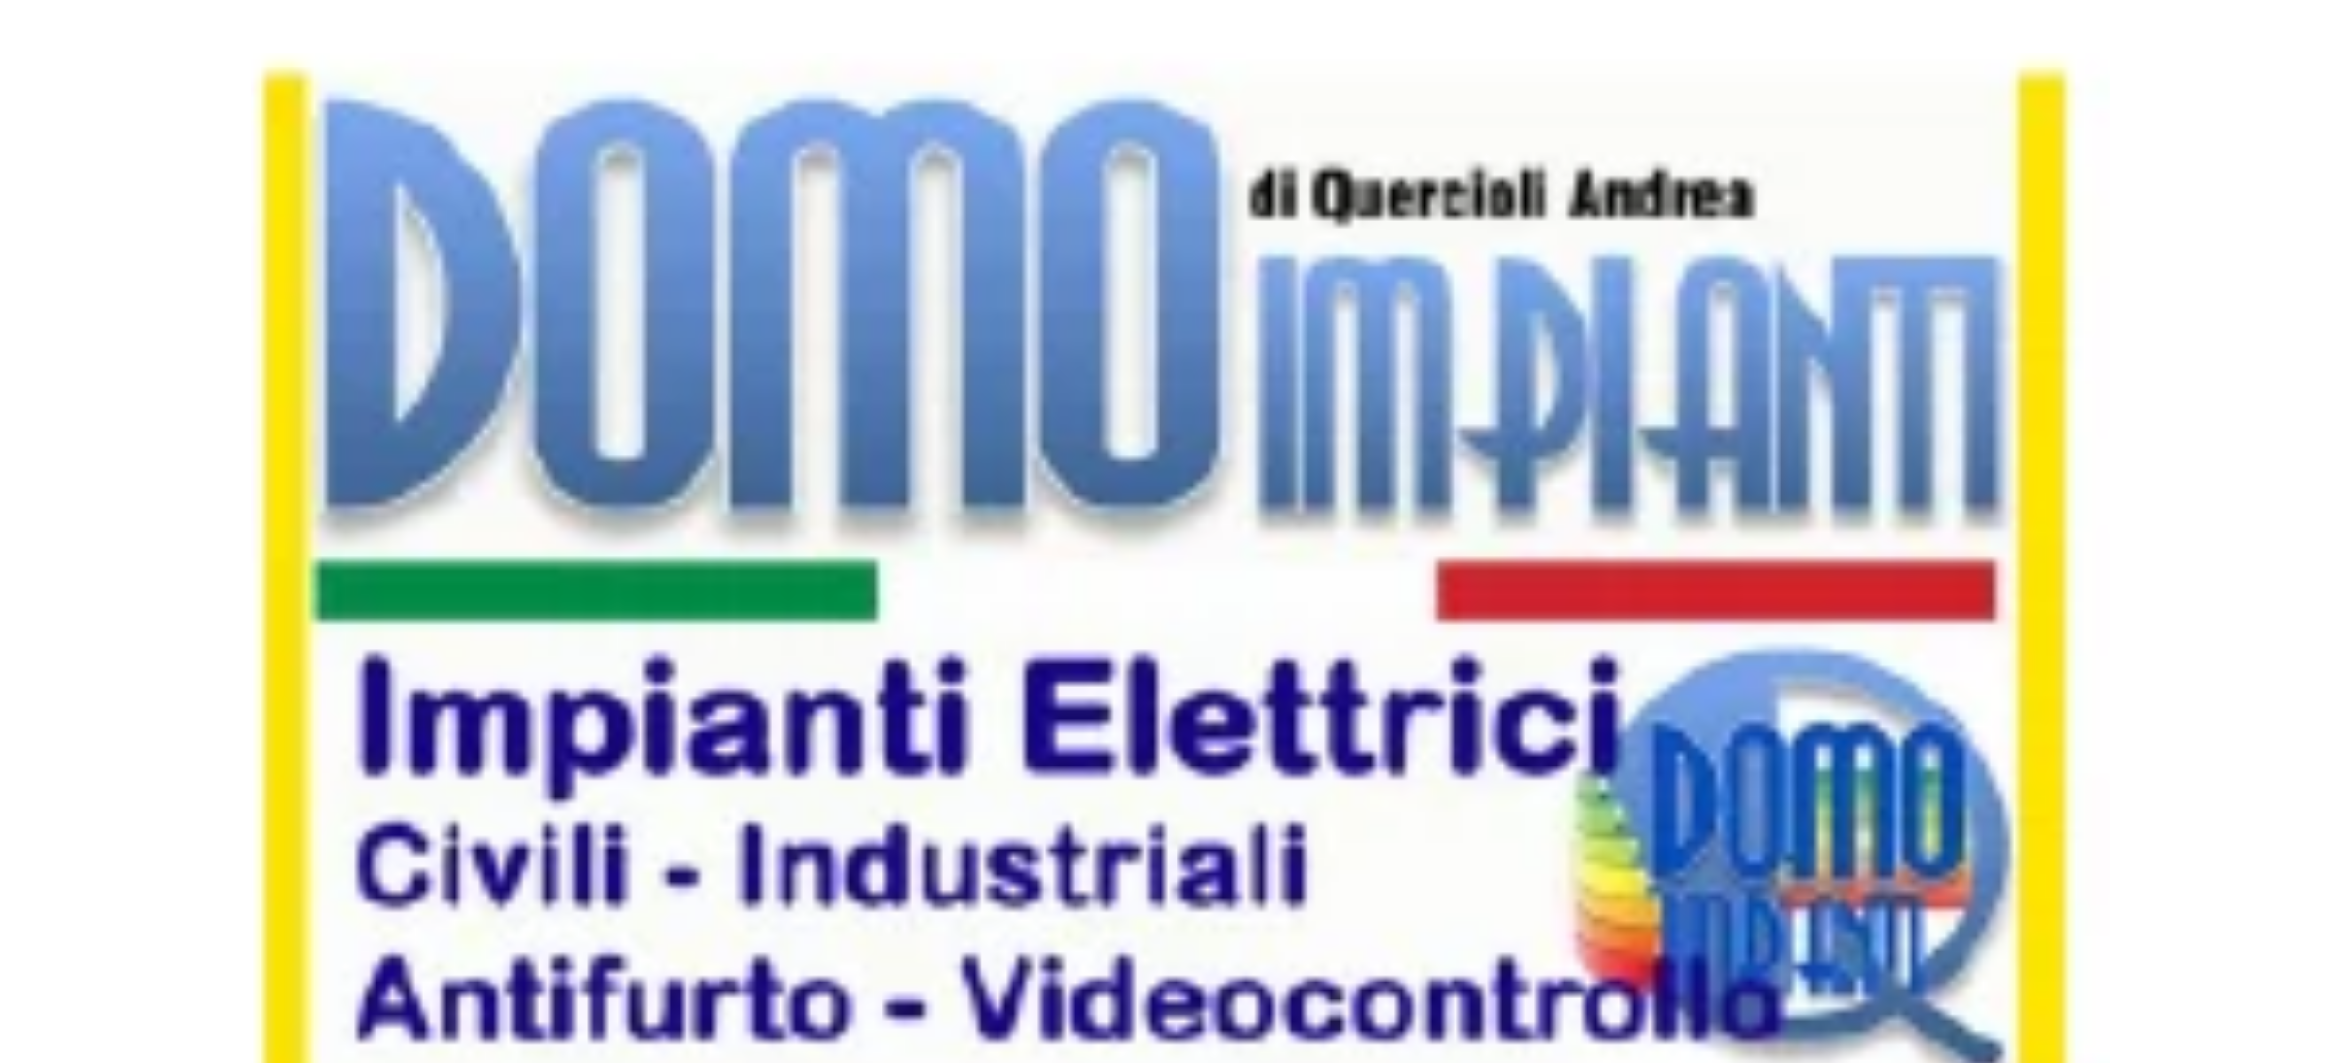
%!PS
<< /PageSize [2328 1063] >> setpagedevice
/C { dup -16 bitshift 255 div exch dup -8 bitshift 255 and 255 div exch 255 and 255 div setrgbcolor } def
/R { rectfill } def
/I { 5 dict begin { /h /w /y /x /name } { exch def } forall
  gsave x y translate w h scale
  w h 8 [w 0 0 h 0 0] name (r) file false 3 colorimage grestore end } def
0 1063 translate 1 -1 scale
4 setmiterlimit
16#FFFFFF C
0 0 2328 1063 R
(1.rgb) 251 53 1859 1010 I
showpage
